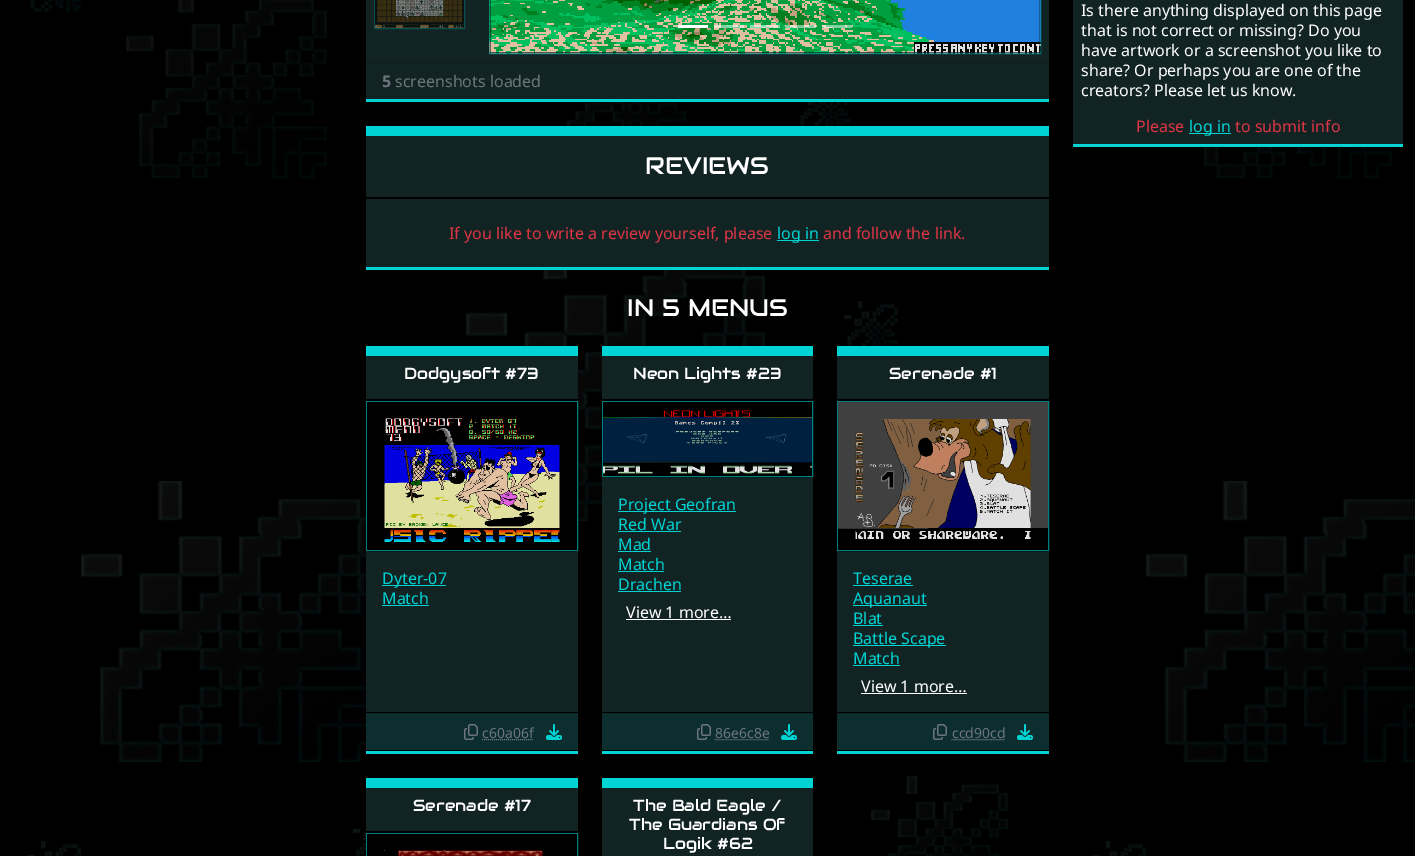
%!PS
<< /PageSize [1415 856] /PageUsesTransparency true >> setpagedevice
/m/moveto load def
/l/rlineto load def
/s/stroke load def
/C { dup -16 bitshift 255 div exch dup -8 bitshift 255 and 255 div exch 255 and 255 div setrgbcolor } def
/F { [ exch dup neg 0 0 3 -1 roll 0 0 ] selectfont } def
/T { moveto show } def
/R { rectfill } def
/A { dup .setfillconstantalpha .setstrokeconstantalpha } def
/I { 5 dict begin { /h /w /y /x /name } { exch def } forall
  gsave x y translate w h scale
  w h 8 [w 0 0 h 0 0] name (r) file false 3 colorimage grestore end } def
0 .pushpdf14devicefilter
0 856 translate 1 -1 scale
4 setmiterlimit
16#000000 C
0 0 1415 856 R
(1.rgb) 27 0 1388 856 I
16#122323 C
366 0 683 99 R
16#00D3D3 C
366 99 683 3 R
16#095151 C
374.5 -.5 90 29 rectstroke
(2.rgb) 375 0 89 28 I
16#007F7F C
489.5 -.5 551 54 rectstroke
(3.rgb) 489 0 552 54 I
16#FFFFFF C
678 25 30 3 R
0.5 A
714 25 30 3 R
750 25 30 3 R
786 25 30 3 R
822 25 30 3 R
1 A
16#0F1D1D C
366 62 683 1 R
/NotoSans-Bold 16 F
16#6C757D C
(5) 382 87 T
/NotoSans-Regular 16 F
(screenshots loaded) 395 87 T
16#122323 C
366 136 683 131 R
16#00D3D3 C
366 126 683 10 R
366 267 683 3 R
16#000000 C
366 197 683 2 R
/Audiowide-Regular 24 F
16#FFFFFF C
(REVIEWS) 645 174 T
/NotoSans-Regular 16 F
16#DC3545 C
(If you like to write a review yourself, please) 449 239 T
16#00D3D3 C
777 240 42 1 R
(log in) 777 239 T
16#DC3545 C
(and follow the link.) 823 239 T
/Audiowide-Regular 24 F
16#FFFFFF C
(IN 5 MENUS) 627 316 T
16#122323 C
366 356 212 356 R
16#00D3D3 C
366 346 212 10 R
366 751 212 3 R
16#000000 C
366 399 212 2 R
/Audiowide-Regular 16 F
16#FFFFFF C
(Dodgysoft #73) 404 379 T
16#000000 C
366 551 212 1 R
16#007F7F C
366.5 401.5 211 149 rectstroke
(4.rgb) 367 402 210 148 I
16#00D3D3 C
382 585 64 1 R
/NotoSans-Regular 16 F
(Dyter-07) 382 584 T
(Match) 382 604 T
382 605 47 1 R
16#0D2E2E C
366 714 212 36 R
16#0B2626 C
366 713 212 1 R
(5.rgb) 464 724 14 16 I
/NotoSans-Regular 14 F
16#6C757D C
(c60a06f) 482 738 T
[1 1] 0 setdash
482 739.5 m 51.5 0 l s
(6.rgb) 546 724 16 16 I
16#122323 C
602 356 211 356 R
16#00D3D3 C
602 346 211 10 R
602 751 211 3 R
16#000000 C
602 399 211 2 R
/Audiowide-Regular 16 F
16#FFFFFF C
(Neon Lights #23) 633 379 T
16#000000 C
602 477 211 1 R
16#007F7F C
[] 0 setdash
602.5 401.5 210 75 rectstroke
(7.rgb) 603 402 209 74 I
16#000000 C
615 712 162 1 R
16#00D3D3 C
618 511 118 1 R
/NotoSans-Regular 16 F
(Project Geofran) 618 510 T
(Red War) 618 530 T
618 531 63 1 R
(Mad) 618 550 T
618 551 33 1 R
(Match) 618 570 T
618 571 46 1 R
(Drachen) 618 590 T
618 591 63 1 R
16#FFFFFF C
(View 1 more…) 626 618 T
626 619 105 1 R
16#0D2E2E C
602 714 211 36 R
16#0B2626 C
602 713 211 1 R
(5.rgb) 697 724 14 16 I
/NotoSans-Regular 14 F
16#6C757D C
(86e6c8e) 715 738 T
[1 1] 0 setdash
714.5 739.5 m 54.5 0 l s
(6.rgb) 781 724 16 16 I
16#122323 C
837 356 212 356 R
16#00D3D3 C
837 346 212 10 R
837 751 212 3 R
16#000000 C
837 399 212 2 R
/Audiowide-Regular 16 F
16#FFFFFF C
(Serenade #1) 889 379 T
16#000000 C
837 551 212 1 R
16#007F7F C
[] 0 setdash
837.5 401.5 211 149 rectstroke
(8.rgb) 838 402 210 148 I
/NotoSans-Regular 16 F
16#00D3D3 C
(Teserae) 853 584 T
853 585 60 1 R
853 605 74 1 R
(Aquanaut) 853 604 T
(Blat) 853 624 T
853 625 30 1 R
853 645 93 1 R
(Battle Scape) 853 644 T
(Match) 853 664 T
853 665 47 1 R
16#FFFFFF C
(View 1 more…) 861 692 T
861 693 106 1 R
16#0D2E2E C
837 714 212 36 R
16#0B2626 C
837 713 212 1 R
(5.rgb) 933 724 14 16 I
/NotoSans-Regular 14 F
16#6C757D C
(ccd90cd) 952 738 T
[1 1] 0 setdash
951.5 739.5 m 53.5 0 l s
(6.rgb) 1017 724 16 16 I
16#122323 C
366 788 212 43 R
16#00D3D3 C
366 778 212 10 R
16#000000 C
366 831 192 2 R
/Audiowide-Regular 16 F
16#FFFFFF C
(Serenade #17) 413 811 T
16#007F7F C
[] 0 setdash
366.5 833.5 211 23 rectstroke
(9.rgb) 367 834 210 22 I
16#122323 C
602 788 211 68 R
16#00D3D3 C
602 778 211 10 R
16#FFFFFF C
(The Bald Eagle /) 633 811 T
(The Guardians Of) 629 830 T
(Logik #62) 663 849 T
16#122323 C
1073 0 330 144 R
16#00D3D3 C
1073 144 330 3 R
/NotoSans-Regular 16 F
16#FFFFFF C
(Is there anything displayed on this page) 1081 16 T
(that is not correct or missing? Do you) 1081 36 T
(have artwork or a screenshot you like to) 1081 56 T
(share? Or perhaps you are one of the) 1081 76 T
(creators? Please let us know.) 1081 96 T
16#DC3545 C
(Please) 1136 132 T
16#00D3D3 C
1189 133 42 1 R
(log in) 1189 132 T
16#DC3545 C
(to submit info) 1235 132 T
.poppdf14devicefilter showpage
